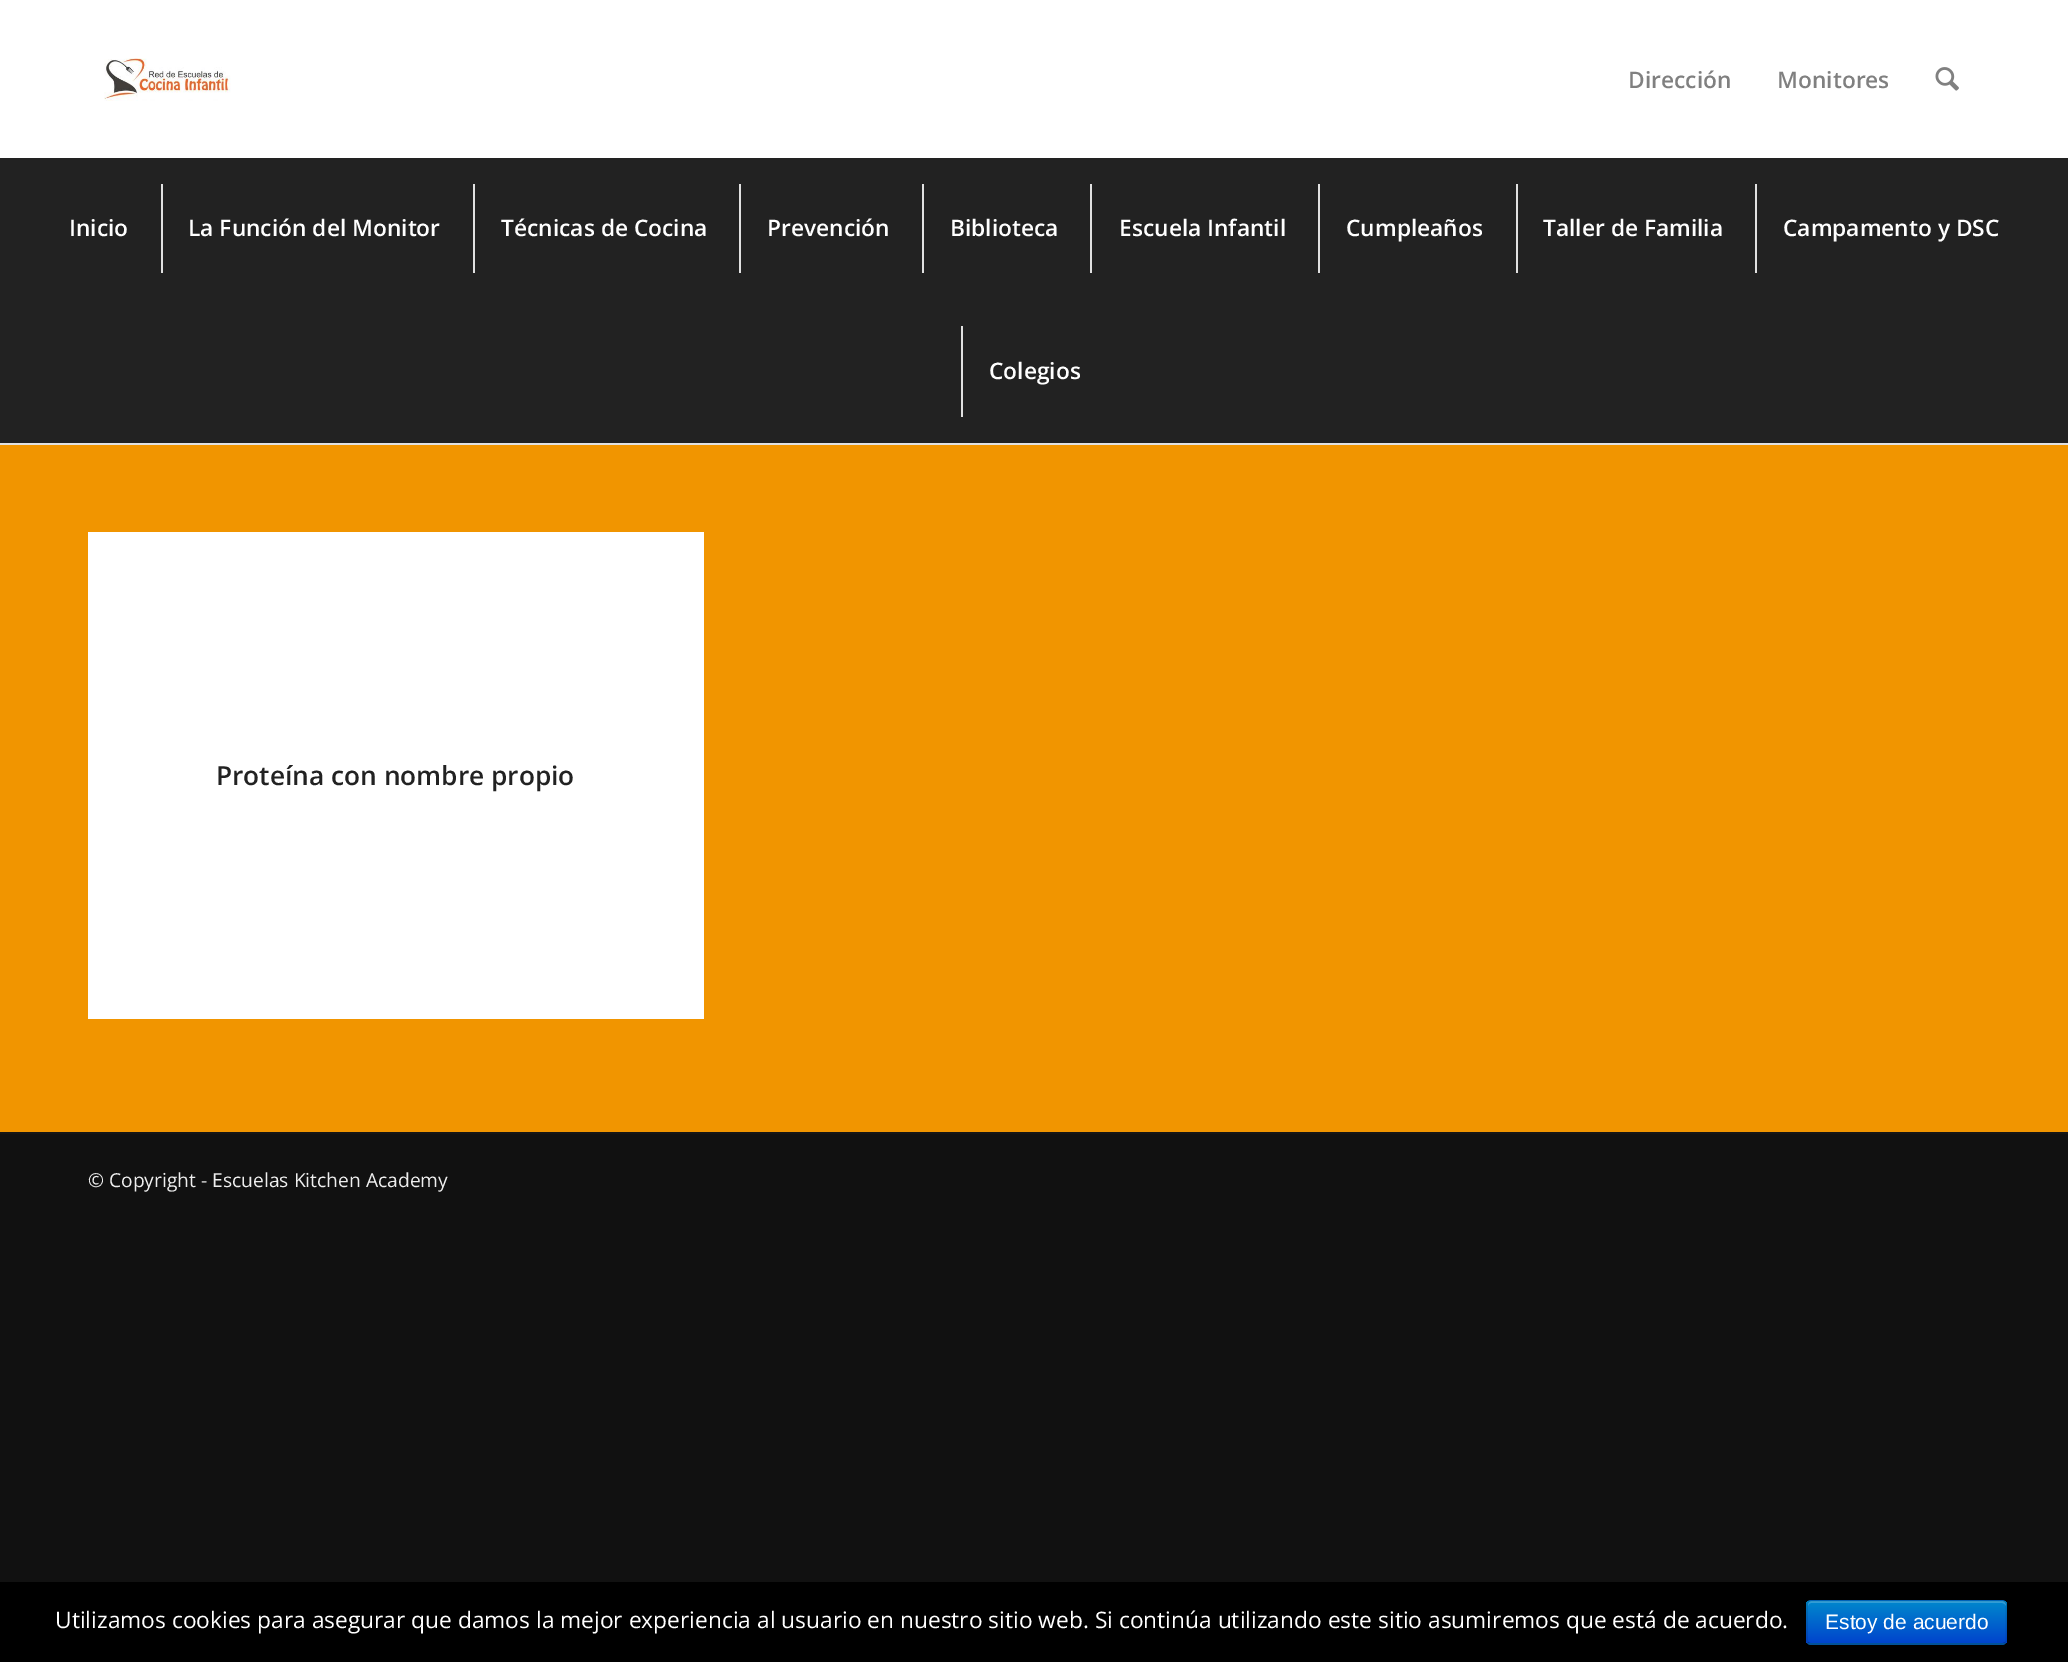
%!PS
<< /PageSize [2068 1662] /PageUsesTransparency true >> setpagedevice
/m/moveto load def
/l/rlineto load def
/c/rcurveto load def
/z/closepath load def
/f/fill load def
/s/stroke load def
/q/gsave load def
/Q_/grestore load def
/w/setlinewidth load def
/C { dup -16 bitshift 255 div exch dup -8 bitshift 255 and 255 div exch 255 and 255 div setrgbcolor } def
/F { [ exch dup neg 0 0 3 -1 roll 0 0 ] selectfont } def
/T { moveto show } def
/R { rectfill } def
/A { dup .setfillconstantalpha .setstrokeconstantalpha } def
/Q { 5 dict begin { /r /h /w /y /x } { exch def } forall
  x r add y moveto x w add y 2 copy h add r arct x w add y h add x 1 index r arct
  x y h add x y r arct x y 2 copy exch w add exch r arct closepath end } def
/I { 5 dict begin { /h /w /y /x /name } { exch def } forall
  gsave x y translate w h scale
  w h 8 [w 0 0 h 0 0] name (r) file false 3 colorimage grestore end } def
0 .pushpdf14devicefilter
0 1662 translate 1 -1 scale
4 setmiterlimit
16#111111 C
0 0 2068 1662 R
16#FFFFFF C
0 0 2068 158 R
(1.rgb) 104 58 127 43 I
/OpenSans-SemiBold 22.75 F
16#808080 C
(Dirección) 1628 88 T
(Monitores) 1777 88 T
(2.rgb) 1935 67 24 24 I
16#222222 C
0 158 2068 285 R
16#E1E1E1 C
0 443 2068 2 R
16#FFFFFF C
(Inicio) 69 236 T
16#E1E1E1 C
161 184 2 89 R
16#FFFFFF C
(La Función del Monitor) 188 236 T
16#E1E1E1 C
473 184 2 89 R
16#FFFFFF C
(Técnicas de Cocina) 501 236 T
16#E1E1E1 C
739 184 2 89 R
16#FFFFFF C
(Prevención) 767 236 T
16#E1E1E1 C
922 184 2 89 R
16#FFFFFF C
(Biblioteca) 950 236 T
16#E1E1E1 C
1090 184 2 89 R
16#FFFFFF C
(Escuela Infantil) 1119 236 T
16#E1E1E1 C
1318 184 2 89 R
16#FFFFFF C
(Cumpleaños) 1346 236 T
16#E1E1E1 C
1516 184 2 89 R
16#FFFFFF C
(Taller de Familia) 1543 236 T
16#E1E1E1 C
1755 184 2 89 R
16#FFFFFF C
(Campamento y DSC) 1783 236 T
16#E1E1E1 C
961 326 2 91 R
16#FFFFFF C
(Colegios) 989 379 T
16#F19500 C
0 445 2068 687 R
16#FFFFFF C
88 532 616 487 R
/OpenSans-SemiBold 26.25 F
16#222222 C
(Proteína con nombre propio) 216 785 T
16#161616 C
0 1132 2068 2 R
/OpenSans-Regular 19.25 F
16#EEEEEE C
(© Copyright - Escuelas Kitchen Academy) 88 1187 T
16#000000 C
0 1582 2068 80 R
/OpenSans-Regular 22.75 F
16#FFFFFF C
(Utilizamos cookies para asegurar que damos la mejor experiencia al usuario en nuestro sitio web. Si continúa utilizando este sitio asumiremos que está de acuerdo.) 55 1628 T
16#006DCC C
1806 1600 201 45 5 Q f
q
1806 1600 201 45 5 Q clip newpath
q 1806 1601 m 201 0 l 0 42 l -201 0 l z clip newpath
<< /ShadingType 2 /ColorSpace /DeviceRGB /Coords [1907 1601 1907 1643] /Extend [true true] /Function << /FunctionType 2 /Domain [0 1] /C0 [0 .533 .8] /C1 [0 .267 .8] /N 1 >> >> shfill Q_
Q_
0.2 A
16#FFFFFF C
1811 1603 m 191 0 l 2 0 4 2 4 3 c 0 -1 l 0 -2 -2 -4 -4 -4 c -190 0 l -2 0 -4 2 -4 4 c 0 1 l 0 -1 1 -3 3 -3 c z f
0.25 A
16#000000 C
1.8 w
2005 1643 m -.5 .5 -2 1 -3 1 c -191 0 l -1 0 -2 -.5 -3 -1 c s
0.1 A
1808 1643 m -.5 -1 -1 -2 -1 -3 c 0 -35 l 0 -1.5 .5 -2.5 1 -3.5 c 1 -.5 2 -1 3 -1 c 191 0 l 1 0 2.5 .5 3 1 c 1 1 1.5 2 1.5 3.5 c 0 35 l 0 1 -.5 2 -1.5 3 c s
/LiberationSans-Regular 21 F
1 A
16#FFFFFF C
(Estoy de acuerdo) 1825 1629 T
.poppdf14devicefilter showpage
